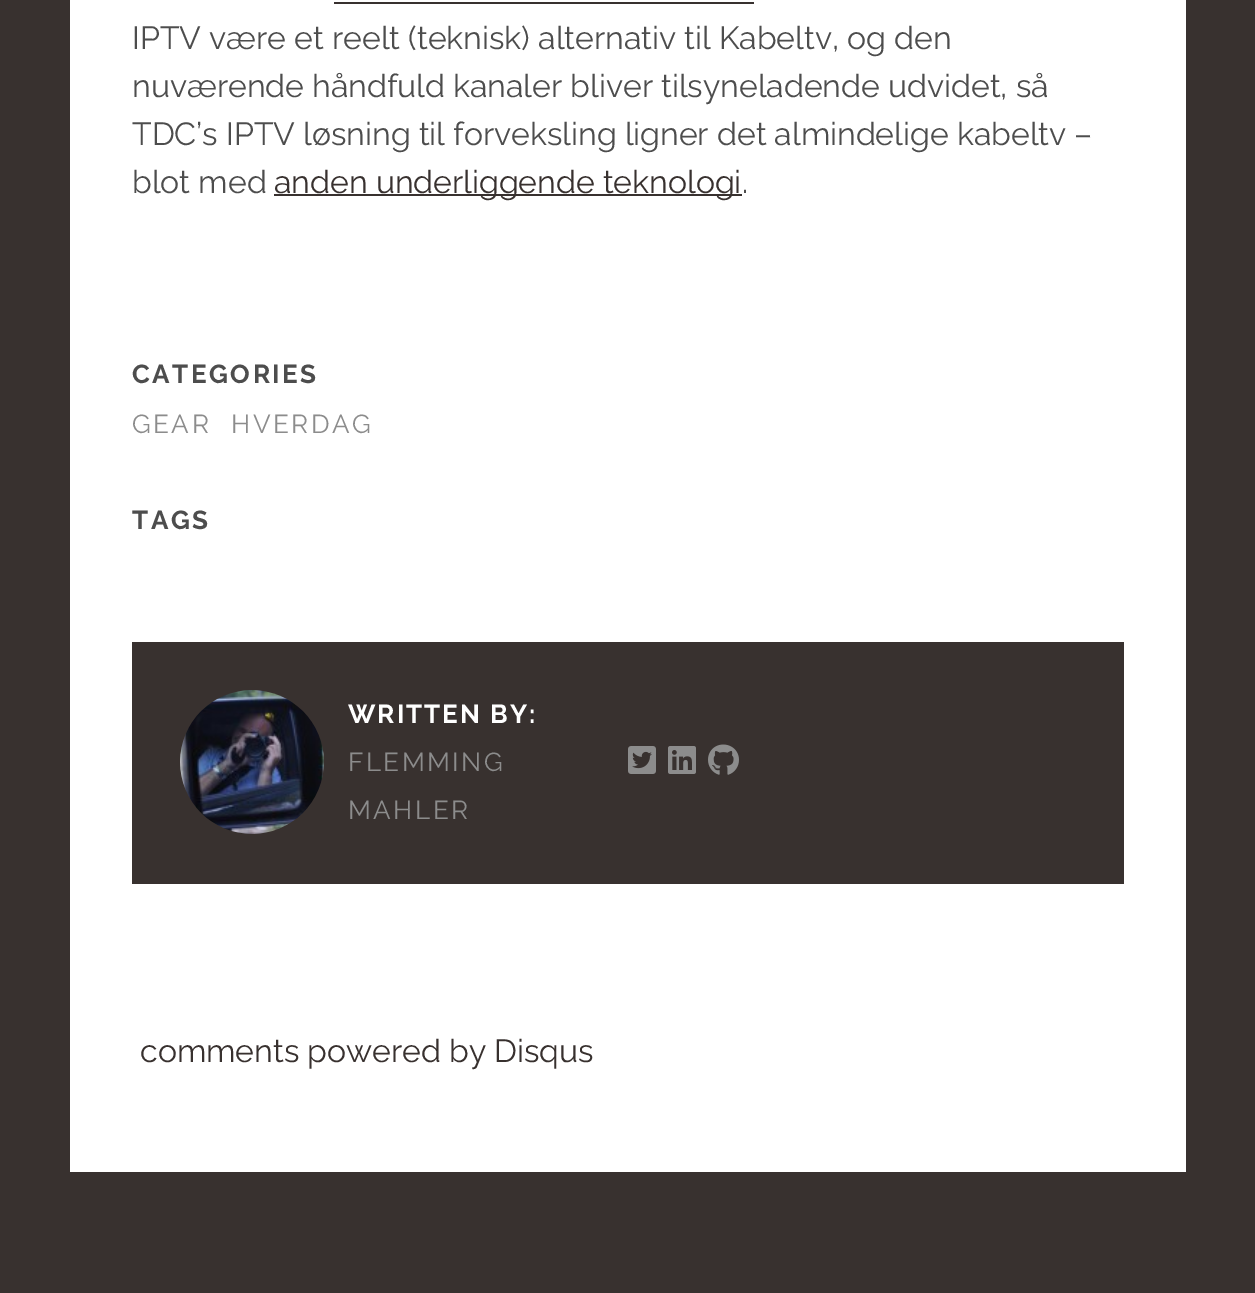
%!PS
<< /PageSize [1255 1293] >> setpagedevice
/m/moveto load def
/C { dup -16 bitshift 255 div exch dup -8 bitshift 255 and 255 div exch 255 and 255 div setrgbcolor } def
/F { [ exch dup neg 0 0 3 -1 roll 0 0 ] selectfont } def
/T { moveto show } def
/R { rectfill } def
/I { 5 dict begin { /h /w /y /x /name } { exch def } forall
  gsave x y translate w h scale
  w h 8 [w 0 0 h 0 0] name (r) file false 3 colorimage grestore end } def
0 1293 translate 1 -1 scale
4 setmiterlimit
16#38312F C
0 0 1255 1293 R
16#FFFFFF C
70 0 1116 1172 R
16#38312F C
334 2 420 2 R
/Raleway-Regular 32 F
16#4D4D4D C
(IPTV være et reelt \(teknisk\) alternativ til Kabeltv, og den) 132 49 T
(nuværende håndfuld kanaler bliver tilsyneladende udvidet, så) 132 97 T
(TDC’s IPTV løsning til forveksling ligner det almindelige kabeltv –) 132 145 T
(blot med) 132 193 T
16#38312F C
274 194 468 2 R
(anden underliggende teknologi) 274 193 T
16#4D4D4D C
(.) 742 193 T
/Raleway-Bold 26 F
132 383 m 2.5 0 (CATEGORIES) ashow
/Raleway-Regular 26 F
16#8C8C8C C
132 433 m 2.5 0 (GEAR) ashow
231 433 m 2.5 0 (HVERDAG) ashow
/Raleway-Bold 26 F
16#4D4D4D C
132 529 m 2.5 0 (TAGS) ashow
16#38312F C
132 642 992 242 R
(1.rgb) 180 690 144 144 I
16#FFFFFF C
348 723 m 2 0 (WRITTEN BY:) ashow
/Raleway-Regular 26 F
16#8C8C8C C
348 771 m 2.5 0 (FLEMMING) ashow
348 819 m 2.5 0 (MAHLER) ashow
(2.rgb) 628 746 28 28 I
(3.rgb) 668 746 28 28 I
(4.rgb) 708 744 31 31 I
/Raleway-Regular 32 F
16#38312F C
(comments powered by Disqus) 140 1062 T
showpage
